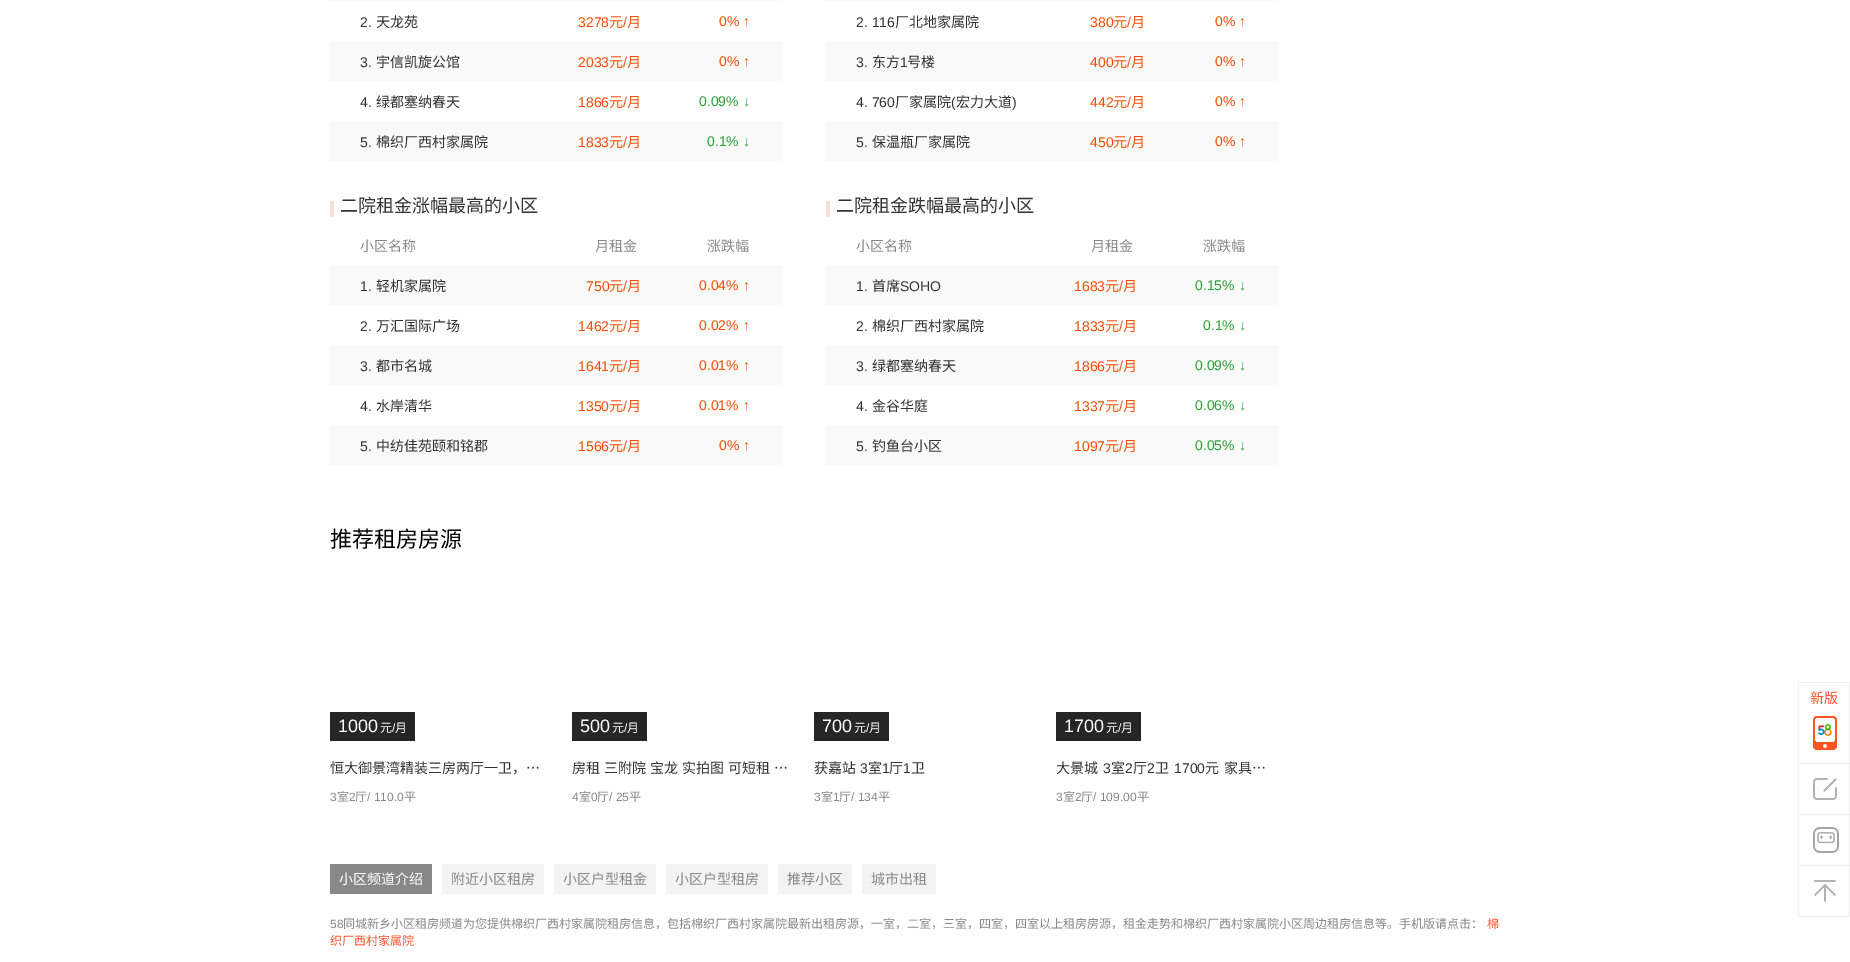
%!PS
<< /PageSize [1850 962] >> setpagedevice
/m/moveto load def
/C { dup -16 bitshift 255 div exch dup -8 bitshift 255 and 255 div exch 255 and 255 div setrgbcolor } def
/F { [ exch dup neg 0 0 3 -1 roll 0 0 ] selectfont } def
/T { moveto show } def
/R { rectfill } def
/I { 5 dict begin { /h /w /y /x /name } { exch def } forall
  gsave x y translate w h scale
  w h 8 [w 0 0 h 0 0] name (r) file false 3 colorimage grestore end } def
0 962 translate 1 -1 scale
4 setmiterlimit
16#FFFFFF C
0 0 1850 962 R
16#F9F9F9 C
330 0 452 1 R
/LiberationSans-Regular 14 F
16#333333 C
(2.) 360 27 T
/NotoSansCJKSC-Regular 14 F
(天龙苑) 376 27 T
/LiberationSans-Regular 14 F
16#F64B00 C
(3278) 578 27 T
/NotoSansCJKSC-Regular 14 F
(元) 609 27 T
/LiberationSans-Regular 14 F
(/) 623 27 T
/NotoSansCJKSC-Regular 14 F
(月) 627 27 T
/LiberationSans-Regular 14 F
(0% ↑) 719 26 T
16#F9F9F9 C
330 41 452 40 R
16#333333 C
(3.) 360 67 T
/NotoSansCJKSC-Regular 14 F
(宇信凯旋公馆) 376 67 T
/LiberationSans-Regular 14 F
16#F64B00 C
(2033) 578 67 T
/NotoSansCJKSC-Regular 14 F
(元) 609 67 T
/LiberationSans-Regular 14 F
(/) 623 67 T
/NotoSansCJKSC-Regular 14 F
(月) 627 67 T
/LiberationSans-Regular 14 F
(0% ↑) 719 66 T
16#333333 C
(4.) 360 107 T
/NotoSansCJKSC-Regular 14 F
(绿都塞纳春天) 376 107 T
/LiberationSans-Regular 14 F
16#F64B00 C
(1866) 578 107 T
/NotoSansCJKSC-Regular 14 F
(元) 609 107 T
/LiberationSans-Regular 14 F
(/) 623 107 T
/NotoSansCJKSC-Regular 14 F
(月) 627 107 T
/LiberationSans-Regular 14 F
16#28A032 C
(0.09% ↓) 699 106 T
16#F9F9F9 C
330 121 452 40 R
16#333333 C
(5.) 360 147 T
/NotoSansCJKSC-Regular 14 F
(棉织厂西村家属院) 376 147 T
/LiberationSans-Regular 14 F
16#F64B00 C
(1833) 578 147 T
/NotoSansCJKSC-Regular 14 F
(元) 609 147 T
/LiberationSans-Regular 14 F
(/) 623 147 T
/NotoSansCJKSC-Regular 14 F
(月) 627 147 T
/LiberationSans-Regular 14 F
16#28A032 C
(0.1% ↓) 707 146 T
16#F9F9F9 C
826 0 452 1 R
16#333333 C
(2. 116) 856 27 T
/NotoSansCJKSC-Regular 14 F
(厂北地家属院) 895 27 T
/LiberationSans-Regular 14 F
16#F64B00 C
(380) 1090 27 T
/NotoSansCJKSC-Regular 14 F
(元) 1113 27 T
/LiberationSans-Regular 14 F
(/) 1127 27 T
/NotoSansCJKSC-Regular 14 F
(月) 1131 27 T
/LiberationSans-Regular 14 F
(0% ↑) 1215 26 T
16#F9F9F9 C
826 41 452 40 R
16#333333 C
(3.) 856 67 T
/NotoSansCJKSC-Regular 14 F
(东方) 872 67 T
/LiberationSans-Regular 14 F
(1) 900 67 T
/NotoSansCJKSC-Regular 14 F
(号楼) 907 67 T
/LiberationSans-Regular 14 F
16#F64B00 C
(400) 1090 67 T
/NotoSansCJKSC-Regular 14 F
(元) 1113 67 T
/LiberationSans-Regular 14 F
(/) 1127 67 T
/NotoSansCJKSC-Regular 14 F
(月) 1131 67 T
/LiberationSans-Regular 14 F
(0% ↑) 1215 66 T
16#333333 C
(4. 760) 856 107 T
/NotoSansCJKSC-Regular 14 F
(厂家属院) 895 107 T
/LiberationSans-Regular 14 F
(\() 951 107 T
/NotoSansCJKSC-Regular 14 F
(宏力大道) 956 107 T
/LiberationSans-Regular 14 F
(\)) 1012 107 T
16#F64B00 C
(442) 1090 107 T
/NotoSansCJKSC-Regular 14 F
(元) 1113 107 T
/LiberationSans-Regular 14 F
(/) 1127 107 T
/NotoSansCJKSC-Regular 14 F
(月) 1131 107 T
/LiberationSans-Regular 14 F
(0% ↑) 1215 106 T
16#F9F9F9 C
826 121 452 40 R
16#333333 C
(5.) 856 147 T
/NotoSansCJKSC-Regular 14 F
(保温瓶厂家属院) 872 147 T
/LiberationSans-Regular 14 F
16#F64B00 C
(450) 1090 147 T
/NotoSansCJKSC-Regular 14 F
(元) 1113 147 T
/LiberationSans-Regular 14 F
(/) 1127 147 T
/NotoSansCJKSC-Regular 14 F
(月) 1131 147 T
/LiberationSans-Regular 14 F
(0% ↑) 1215 146 T
16#FFDDD5 C
330 201 4 16 R
/NotoSansCJKSC-Regular 18 F
16#333333 C
(二院租金涨幅最高的小区) 340 212 T
/NotoSansCJKSC-Regular 14 F
16#888888 C
(小区名称) 360 251 T
(月租金) 595 251 T
(涨跌幅) 707 251 T
16#F9F9F9 C
330 265 452 40 R
/LiberationSans-Regular 14 F
16#333333 C
(1.) 360 291 T
/NotoSansCJKSC-Regular 14 F
(轻机家属院) 376 291 T
/LiberationSans-Regular 14 F
16#F64B00 C
(750) 586 291 T
/NotoSansCJKSC-Regular 14 F
(元) 609 291 T
/LiberationSans-Regular 14 F
(/) 623 291 T
/NotoSansCJKSC-Regular 14 F
(月) 627 291 T
/LiberationSans-Regular 14 F
(0.04% ↑) 699 290 T
16#333333 C
(2.) 360 331 T
/NotoSansCJKSC-Regular 14 F
(万汇国际广场) 376 331 T
/LiberationSans-Regular 14 F
16#F64B00 C
(1462) 578 331 T
/NotoSansCJKSC-Regular 14 F
(元) 609 331 T
/LiberationSans-Regular 14 F
(/) 623 331 T
/NotoSansCJKSC-Regular 14 F
(月) 627 331 T
/LiberationSans-Regular 14 F
(0.02% ↑) 699 330 T
16#F9F9F9 C
330 345 452 40 R
16#333333 C
(3.) 360 371 T
/NotoSansCJKSC-Regular 14 F
(都市名城) 376 371 T
/LiberationSans-Regular 14 F
16#F64B00 C
(1641) 578 371 T
/NotoSansCJKSC-Regular 14 F
(元) 609 371 T
/LiberationSans-Regular 14 F
(/) 623 371 T
/NotoSansCJKSC-Regular 14 F
(月) 627 371 T
/LiberationSans-Regular 14 F
(0.01% ↑) 699 370 T
16#333333 C
(4.) 360 411 T
/NotoSansCJKSC-Regular 14 F
(水岸清华) 376 411 T
/LiberationSans-Regular 14 F
16#F64B00 C
(1350) 578 411 T
/NotoSansCJKSC-Regular 14 F
(元) 609 411 T
/LiberationSans-Regular 14 F
(/) 623 411 T
/NotoSansCJKSC-Regular 14 F
(月) 627 411 T
/LiberationSans-Regular 14 F
(0.01% ↑) 699 410 T
16#F9F9F9 C
330 425 452 40 R
16#333333 C
(5.) 360 451 T
/NotoSansCJKSC-Regular 14 F
(中纺佳苑颐和铭郡) 376 451 T
/LiberationSans-Regular 14 F
16#F64B00 C
(1566) 578 451 T
/NotoSansCJKSC-Regular 14 F
(元) 609 451 T
/LiberationSans-Regular 14 F
(/) 623 451 T
/NotoSansCJKSC-Regular 14 F
(月) 627 451 T
/LiberationSans-Regular 14 F
(0% ↑) 719 450 T
16#FFDDD5 C
826 201 4 16 R
/NotoSansCJKSC-Regular 18 F
16#333333 C
(二院租金跌幅最高的小区) 836 212 T
/NotoSansCJKSC-Regular 14 F
16#888888 C
(小区名称) 856 251 T
(月租金) 1091 251 T
(涨跌幅) 1203 251 T
16#F9F9F9 C
826 265 452 40 R
/LiberationSans-Regular 14 F
16#333333 C
(1.) 856 291 T
/NotoSansCJKSC-Regular 14 F
(首席) 872 291 T
/LiberationSans-Regular 14 F
(SOHO) 900 291 T
16#F64B00 C
(1683) 1074 291 T
/NotoSansCJKSC-Regular 14 F
(元) 1105 291 T
/LiberationSans-Regular 14 F
(/) 1119 291 T
/NotoSansCJKSC-Regular 14 F
(月) 1123 291 T
/LiberationSans-Regular 14 F
16#28A032 C
(0.15% ↓) 1195 290 T
16#333333 C
(2.) 856 331 T
/NotoSansCJKSC-Regular 14 F
(棉织厂西村家属院) 872 331 T
/LiberationSans-Regular 14 F
16#F64B00 C
(1833) 1074 331 T
/NotoSansCJKSC-Regular 14 F
(元) 1105 331 T
/LiberationSans-Regular 14 F
(/) 1119 331 T
/NotoSansCJKSC-Regular 14 F
(月) 1123 331 T
/LiberationSans-Regular 14 F
16#28A032 C
(0.1% ↓) 1203 330 T
16#F9F9F9 C
826 345 452 40 R
16#333333 C
(3.) 856 371 T
/NotoSansCJKSC-Regular 14 F
(绿都塞纳春天) 872 371 T
/LiberationSans-Regular 14 F
16#F64B00 C
(1866) 1074 371 T
/NotoSansCJKSC-Regular 14 F
(元) 1105 371 T
/LiberationSans-Regular 14 F
(/) 1119 371 T
/NotoSansCJKSC-Regular 14 F
(月) 1123 371 T
/LiberationSans-Regular 14 F
16#28A032 C
(0.09% ↓) 1195 370 T
16#333333 C
(4.) 856 411 T
/NotoSansCJKSC-Regular 14 F
(金谷华庭) 872 411 T
/LiberationSans-Regular 14 F
16#F64B00 C
(1337) 1074 411 T
/NotoSansCJKSC-Regular 14 F
(元) 1105 411 T
/LiberationSans-Regular 14 F
(/) 1119 411 T
/NotoSansCJKSC-Regular 14 F
(月) 1123 411 T
/LiberationSans-Regular 14 F
16#28A032 C
(0.06% ↓) 1195 410 T
16#F9F9F9 C
826 425 452 40 R
16#333333 C
(5.) 856 451 T
/NotoSansCJKSC-Regular 14 F
(钓鱼台小区) 872 451 T
/LiberationSans-Regular 14 F
16#F64B00 C
(1097) 1074 451 T
/NotoSansCJKSC-Regular 14 F
(元) 1105 451 T
/LiberationSans-Regular 14 F
(/) 1119 451 T
/NotoSansCJKSC-Regular 14 F
(月) 1123 451 T
/LiberationSans-Regular 14 F
16#28A032 C
(0.05% ↓) 1195 450 T
/NotoSansCJKSC-Regular 22 F
16#000000 C
(推荐租房房源) 330 547 T
16#262626 C
330 712 85 29 R
/LiberationSans-Regular 18 F
16#FFFFFF C
(1000) 338 732 T
/NotoSansCJKSC-Regular 12 F
(元) 380 732 T
/LiberationSans-Regular 12 F
(/) 392 732 T
/NotoSansCJKSC-Regular 12 F
(月) 395 732 T
/NotoSansCJKSC-Regular 14 F
16#333333 C
(恒大御景湾精装三房两厅一卫，…) 330 773 T
/LiberationSans-Regular 12 F
16#888888 C
(3) 330 801 T
/NotoSansCJKSC-Regular 12 F
(室) 337 801 T
/LiberationSans-Regular 12 F
(2) 349 801 T
/NotoSansCJKSC-Regular 12 F
(厅) 355 801 T
/LiberationSans-Regular 12 F
(/ 110.0) 367 801 T
/NotoSansCJKSC-Regular 12 F
(平) 404 801 T
16#262626 C
572 712 75 29 R
/LiberationSans-Regular 18 F
16#FFFFFF C
(500) 580 732 T
/NotoSansCJKSC-Regular 12 F
(元) 612 732 T
/LiberationSans-Regular 12 F
(/) 624 732 T
/NotoSansCJKSC-Regular 12 F
(月) 627 732 T
/NotoSansCJKSC-Regular 14 F
16#333333 C
572 773 m 1 0 32 (房租 三附院 宝龙 实拍图) widthshow
728 773 m 1 0 32 (可短租 …) widthshow
/LiberationSans-Regular 12 F
16#888888 C
(4) 572 801 T
/NotoSansCJKSC-Regular 12 F
(室) 579 801 T
/LiberationSans-Regular 12 F
(0) 591 801 T
/NotoSansCJKSC-Regular 12 F
(厅) 597 801 T
/LiberationSans-Regular 12 F
(/ 25) 609 801 T
/NotoSansCJKSC-Regular 12 F
(平) 629 801 T
16#262626 C
814 712 75 29 R
/LiberationSans-Regular 18 F
16#FFFFFF C
(700) 822 732 T
/NotoSansCJKSC-Regular 12 F
(元) 854 732 T
/LiberationSans-Regular 12 F
(/) 866 732 T
/NotoSansCJKSC-Regular 12 F
(月) 869 732 T
/NotoSansCJKSC-Regular 14 F
16#333333 C
(获嘉站) 814 773 T
/LiberationSans-Regular 14 F
(3) 860 773 T
/NotoSansCJKSC-Regular 14 F
(室) 868 773 T
/LiberationSans-Regular 14 F
(1) 882 773 T
/NotoSansCJKSC-Regular 14 F
(厅) 889 773 T
/LiberationSans-Regular 14 F
(1) 903 773 T
/NotoSansCJKSC-Regular 14 F
(卫) 911 773 T
/LiberationSans-Regular 12 F
16#888888 C
(3) 814 801 T
/NotoSansCJKSC-Regular 12 F
(室) 821 801 T
/LiberationSans-Regular 12 F
(1) 833 801 T
/NotoSansCJKSC-Regular 12 F
(厅) 839 801 T
/LiberationSans-Regular 12 F
(/ 134) 851 801 T
/NotoSansCJKSC-Regular 12 F
(平) 878 801 T
16#262626 C
1056 712 85 29 R
/LiberationSans-Regular 18 F
16#FFFFFF C
(1700) 1064 732 T
/NotoSansCJKSC-Regular 12 F
(元) 1106 732 T
/LiberationSans-Regular 12 F
(/) 1118 732 T
/NotoSansCJKSC-Regular 12 F
(月) 1121 732 T
/NotoSansCJKSC-Regular 14 F
16#333333 C
(大景城) 1056 773 T
/LiberationSans-Regular 14 F
(3) 1103 773 T
/NotoSansCJKSC-Regular 14 F
(室) 1111 773 T
/LiberationSans-Regular 14 F
(2) 1125 773 T
/NotoSansCJKSC-Regular 14 F
(厅) 1133 773 T
/LiberationSans-Regular 14 F
(2) 1147 773 T
/NotoSansCJKSC-Regular 14 F
(卫) 1155 773 T
/LiberationSans-Regular 14 F
(1700) 1174 773 T
/NotoSansCJKSC-Regular 14 F
(元) 1205 773 T
(家具…) 1224 773 T
/LiberationSans-Regular 12 F
16#888888 C
(3) 1056 801 T
/NotoSansCJKSC-Regular 12 F
(室) 1063 801 T
/LiberationSans-Regular 12 F
(2) 1075 801 T
/NotoSansCJKSC-Regular 12 F
(厅) 1081 801 T
/LiberationSans-Regular 12 F
(/ 109.00) 1093 801 T
/NotoSansCJKSC-Regular 12 F
(平) 1137 801 T
16#EEEEEE C
1798 682 52 1 R
1849 682 1 235 R
1798 682 1 235 R
1799 763 50 1 R
/NotoSansCJKSC-Regular 14 F
16#FF552E C
(新版) 1810 703 T
(1.rgb) 1813 716 24 34 I
16#EEEEEE C
1799 814 50 1 R
(2.rgb) 1813 778 24 22 I
1799 865 50 1 R
(3.rgb) 1813 827 26 26 I
1799 916 50 1 R
(4.rgb) 1814 880 22 22 I
16#888888 C
330 864 102 30 R
16#FFFFFF C
(小区频道介绍) 339 884 T
16#F3F3F3 C
442 864 102 30 R
16#888888 C
(附近小区租房) 451 884 T
16#F3F3F3 C
554 864 102 30 R
16#888888 C
(小区户型租金) 563 884 T
16#F3F3F3 C
666 864 102 30 R
16#888888 C
(小区户型租房) 675 884 T
16#F3F3F3 C
778 864 74 30 R
16#888888 C
(推荐小区) 787 884 T
16#F3F3F3 C
862 864 74 30 R
16#888888 C
(城市出租) 871 884 T
/LiberationSans-Regular 12 F
(58) 330 928 T
/NotoSansCJKSC-Regular 12 F
(同城新乡小区租房频道为您提供棉织厂西村家属院租房信息，包括棉织厂西村家属院最新出租房源，一室，二室，三室，四室，四室以上租房房源，租金走势和棉织厂西村家属院小区周边租房信息等。手机版请点击：) 343 928 T
16#FF552E C
(棉) 1487 928 T
(织厂西村家属院) 330 945 T
showpage
